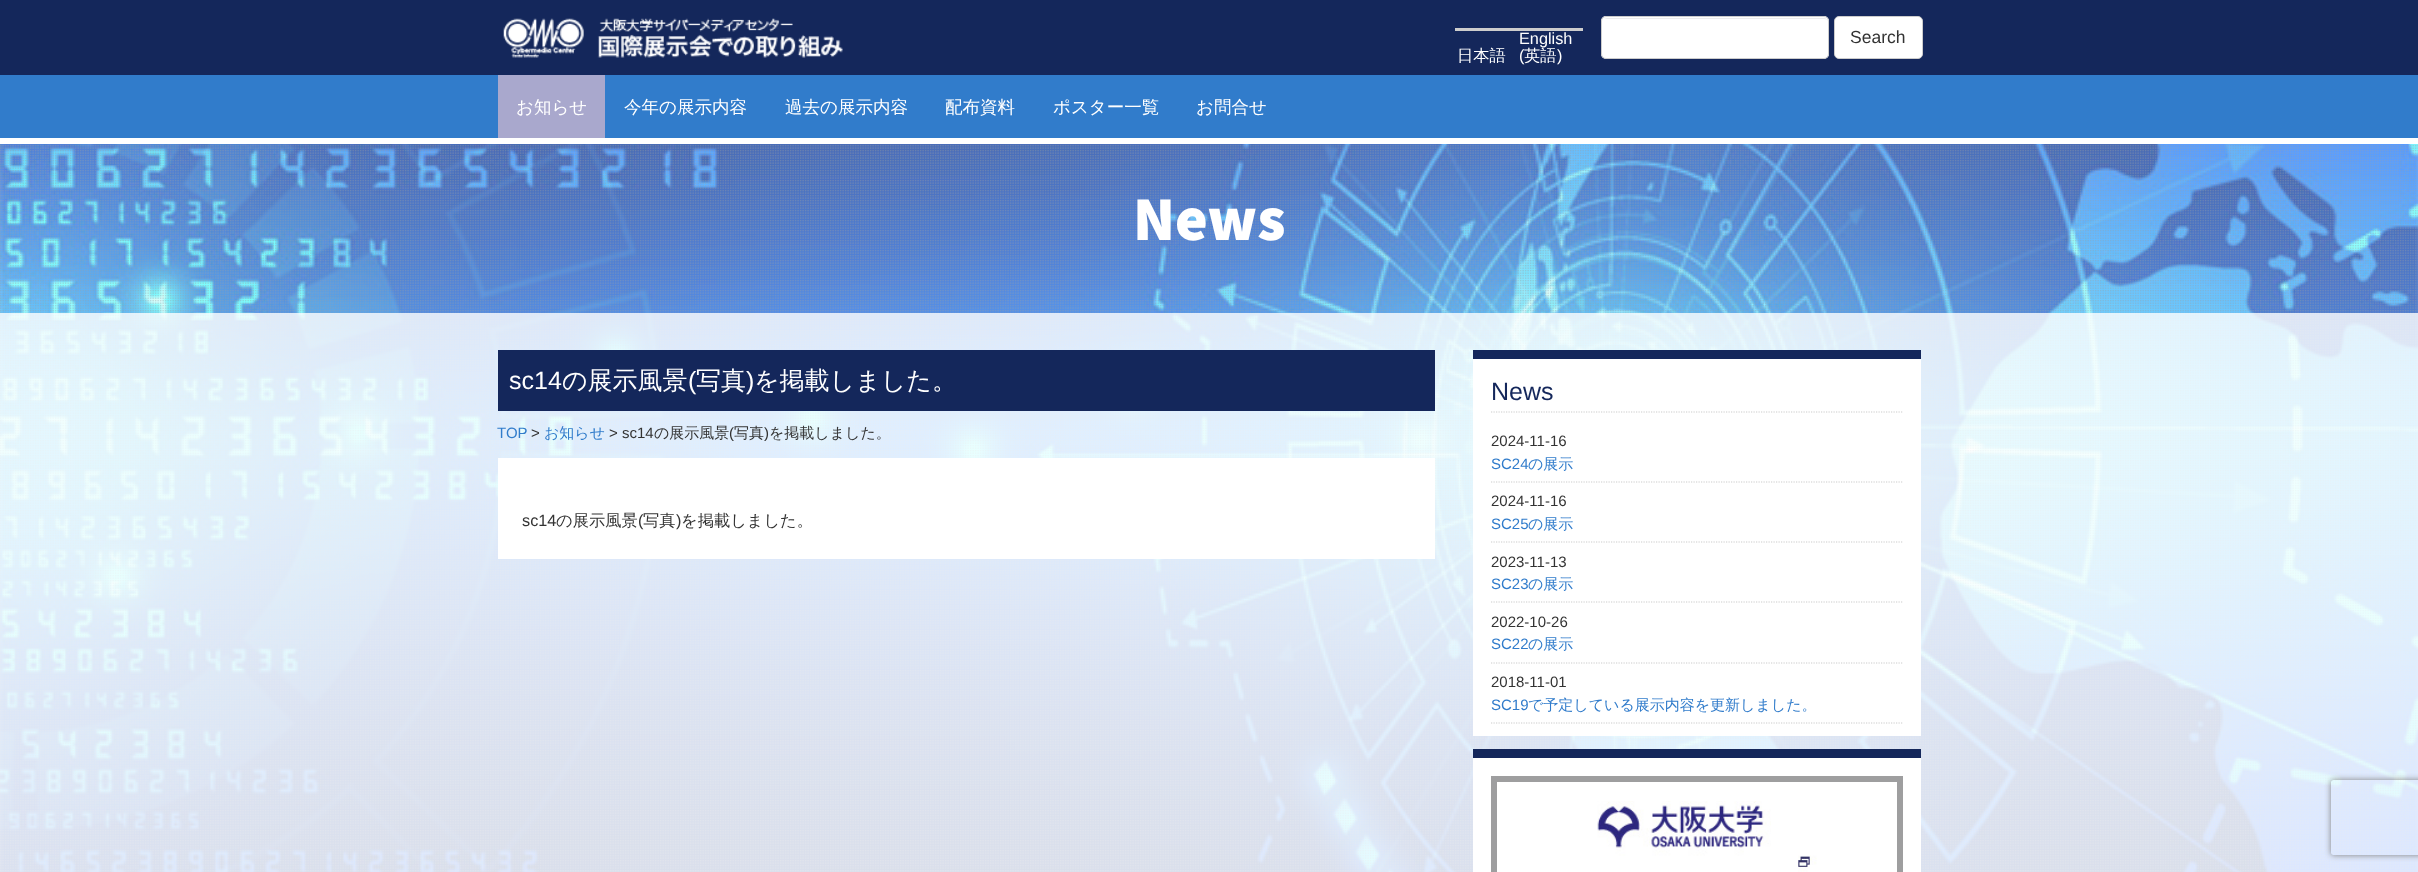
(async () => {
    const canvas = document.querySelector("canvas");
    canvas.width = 2418;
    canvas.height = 872;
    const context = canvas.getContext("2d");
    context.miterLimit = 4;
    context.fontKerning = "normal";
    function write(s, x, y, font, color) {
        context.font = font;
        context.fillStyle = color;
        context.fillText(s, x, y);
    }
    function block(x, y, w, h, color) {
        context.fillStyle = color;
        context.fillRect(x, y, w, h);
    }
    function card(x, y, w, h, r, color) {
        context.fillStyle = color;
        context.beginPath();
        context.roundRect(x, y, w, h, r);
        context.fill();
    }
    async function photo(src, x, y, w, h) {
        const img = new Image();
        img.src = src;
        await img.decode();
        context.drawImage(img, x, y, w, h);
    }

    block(0, 0, 2418, 872, "rgb(255, 255, 255)");
    block(0, 0, 2418, 75, "rgb(20, 39, 91)");
    await photo("media/1.png", 503, 18, 340, 40);
    block(1455, 28, 128, 3, "rgb(205, 205, 205)");
    write("日本語", 1457, 61, "500 16.25px WenQuanYi Zen Hei", "rgb(255, 255, 255)");
    write("English", 1519, 44, "16.25px Liberation Sans", "rgb(255, 255, 255)");
    write("(", 1519, 61, "16.25px Liberation Sans", "rgb(255, 255, 255)");
    write("英語", 1524, 61, "500 16.25px WenQuanYi Zen Hei", "rgb(255, 255, 255)");
    write(")", 1557, 61, "16.25px Liberation Sans", "rgb(255, 255, 255)");
    card(1601, 16, 228, 43, 5, "rgb(255, 255, 255)");
    context.fillStyle = "rgb(236, 236, 236)";
    context.beginPath();
    context.moveTo(1606, 19);
    context.lineTo(1824, 19);
    context.bezierCurveTo(1826, 19, 1828, 20, 1828, 22);
    context.bezierCurveTo(1828, 20, 1826, 18, 1824, 18);
    context.lineTo(1607, 18);
    context.bezierCurveTo(1606, 18, 1605, 19, 1604, 19);
    context.closePath();
    context.fill();
    context.beginPath();
    context.roundRect(1601.5, 16.5, 227, 42, 4.5);
    context.strokeStyle = "rgb(204, 204, 204)";
    context.stroke();
    context.fillStyle = "rgb(255, 255, 255)";
    context.beginPath();
    context.roundRect(1834.5, 16.5, 88, 42, 4.5);
    context.fill();
    context.stroke();
    write("Search", 1850, 43, "17.5px Liberation Sans", "rgb(51, 51, 51)");
    block(0, 75, 2418, 63, "rgb(49, 124, 203)");
    block(498, 75, 107, 63, "rgb(169, 168, 205)");
    write("お知らせ", 516, 113, "500 17.5px WenQuanYi Zen Hei", "rgb(255, 255, 255)");
    write("今年の展示内容", 624, 113, "500 17.5px WenQuanYi Zen Hei", "rgb(255, 255, 255)");
    write("過去の展示内容", 785, 113, "500 17.5px WenQuanYi Zen Hei", "rgb(255, 255, 255)");
    write("配布資料", 945, 113, "500 17.5px WenQuanYi Zen Hei", "rgb(255, 255, 255)");
    write("ポスター一覧", 1053, 113, "500 17.5px WenQuanYi Zen Hei", "rgb(255, 255, 255)");
    write("お問合せ", 1196, 113, "500 17.5px WenQuanYi Zen Hei", "rgb(255, 255, 255)");
    await photo("media/2.png", 0, 144, 2418, 728);
    await photo("media/3.png", 0, 144, 2418, 728);
    write("News", 1133, 240, "900 62.5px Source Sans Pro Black", "rgb(255, 255, 255)");
    block(0, 313, 2418, 559, "rgba(255, 255, 255, 0.8)");
    block(498, 350, 937, 61, "rgb(20, 39, 91)");
    write("sc14", 509, 389, "25px Liberation Sans", "rgb(255, 255, 255)");
    write("の展示風景", 562, 389, "500 25px WenQuanYi Zen Hei", "rgb(255, 255, 255)");
    write("(", 688, 389, "25px Liberation Sans", "rgb(255, 255, 255)");
    write("写真", 696, 389, "500 25px WenQuanYi Zen Hei", "rgb(255, 255, 255)");
    write(")", 746, 389, "25px Liberation Sans", "rgb(255, 255, 255)");
    write("を掲載しました。", 754, 389, "500 25px WenQuanYi Zen Hei", "rgb(255, 255, 255)");
    write("TOP", 497, 438, "15px Liberation Sans", "rgb(49, 124, 203)");
    write(">", 531, 438, "15px Liberation Sans", "rgb(51, 51, 51)");
    write("お知らせ", 544, 438, "500 15px WenQuanYi Zen Hei", "rgb(49, 124, 203)");
    write("> sc14", 609, 438, "15px Liberation Sans", "rgb(51, 51, 51)");
    write("の展示風景", 654, 438, "500 15px WenQuanYi Zen Hei", "rgb(51, 51, 51)");
    write("(", 729, 438, "15px Liberation Sans", "rgb(51, 51, 51)");
    write("写真", 734, 438, "500 15px WenQuanYi Zen Hei", "rgb(51, 51, 51)");
    write(")", 764, 438, "15px Liberation Sans", "rgb(51, 51, 51)");
    write("を掲載しました。", 769, 438, "500 15px WenQuanYi Zen Hei", "rgb(51, 51, 51)");
    block(498, 458, 937, 101, "rgb(255, 255, 255)");
    write("sc14", 522, 526, "16.25px Liberation Sans", "rgb(51, 51, 51)");
    write("の展示風景", 556, 526, "500 16.25px WenQuanYi Zen Hei", "rgb(51, 51, 51)");
    write("(", 638, 526, "16.25px Liberation Sans", "rgb(51, 51, 51)");
    write("写真", 643, 526, "500 16.25px WenQuanYi Zen Hei", "rgb(51, 51, 51)");
    write(")", 676, 526, "16.25px Liberation Sans", "rgb(51, 51, 51)");
    write("を掲載しました。", 681, 526, "500 16.25px WenQuanYi Zen Hei", "rgb(51, 51, 51)");
    block(1473, 359, 448, 377, "rgb(255, 255, 255)");
    block(1473, 350, 448, 9, "rgb(20, 39, 91)");
    context.beginPath();
    context.moveTo(1491, 412);
    context.lineTo(1902.5, 412);
    context.lineWidth = 1.2;
    context.setLineDash([1.25, 1.25]);
    context.stroke();
    write("News", 1491, 400, "25px Liberation Sans", "rgb(20, 39, 91)");
    write("2024-11-16", 1491, 446, "15px Liberation Sans", "rgb(51, 51, 51)");
    context.beginPath();
    context.moveTo(1491, 482);
    context.lineTo(1902.5, 482);
    context.stroke();
    write("SC24", 1491, 469, "15px Liberation Sans", "rgb(49, 124, 203)");
    write("の展示", 1528, 469, "500 15px WenQuanYi Zen Hei", "rgb(49, 124, 203)");
    write("2024-11-16", 1491, 506, "15px Liberation Sans", "rgb(51, 51, 51)");
    context.beginPath();
    context.moveTo(1491, 542);
    context.lineTo(1902.5, 542);
    context.stroke();
    write("SC25", 1491, 529, "15px Liberation Sans", "rgb(49, 124, 203)");
    write("の展示", 1528, 529, "500 15px WenQuanYi Zen Hei", "rgb(49, 124, 203)");
    write("2023-11-13", 1491, 567, "15px Liberation Sans", "rgb(51, 51, 51)");
    context.beginPath();
    context.moveTo(1491, 602);
    context.lineTo(1902.5, 602);
    context.stroke();
    write("SC23", 1491, 589, "15px Liberation Sans", "rgb(49, 124, 203)");
    write("の展示", 1528, 589, "500 15px WenQuanYi Zen Hei", "rgb(49, 124, 203)");
    write("2022-10-26", 1491, 627, "15px Liberation Sans", "rgb(51, 51, 51)");
    context.beginPath();
    context.moveTo(1491, 663);
    context.lineTo(1902.5, 663);
    context.stroke();
    write("SC22", 1491, 649, "15px Liberation Sans", "rgb(49, 124, 203)");
    write("の展示", 1528, 649, "500 15px WenQuanYi Zen Hei", "rgb(49, 124, 203)");
    write("2018-11-01", 1491, 687, "15px Liberation Sans", "rgb(51, 51, 51)");
    context.beginPath();
    context.moveTo(1491, 723);
    context.lineTo(1902.5, 723);
    context.stroke();
    write("SC19", 1491, 710, "15px Liberation Sans", "rgb(49, 124, 203)");
    write("で予定している展示内容を更新しました。", 1528, 710, "500 15px WenQuanYi Zen Hei", "rgb(49, 124, 203)");
    block(1473, 758, 448, 114, "rgb(255, 255, 255)");
    block(1473, 749, 448, 9, "rgb(20, 39, 91)");
    context.strokeStyle = "rgb(158, 158, 159)";
    context.lineWidth = 6;
    context.setLineDash([]);
    context.strokeRect(1494, 779, 406, 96);
    await photo("media/4.png", 1597, 801, 220, 71);
    context.save();
    context.beginPath();
    context.moveTo(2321, 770);
    context.lineTo(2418, 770);
    context.lineTo(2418, 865);
    context.lineTo(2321, 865);
    context.closePath();
    context.moveTo(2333.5, 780);
    context.lineTo(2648.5, 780);
    context.bezierCurveTo(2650, 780, 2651, 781, 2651, 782.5);
    context.lineTo(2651, 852.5);
    context.bezierCurveTo(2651, 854, 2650, 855, 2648.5, 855);
    context.lineTo(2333.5, 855);
    context.bezierCurveTo(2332, 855, 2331, 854, 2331, 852.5);
    context.lineTo(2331, 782.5);
    context.bezierCurveTo(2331, 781, 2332, 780, 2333.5, 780);
    context.closePath();
    context.clip("evenodd");
    context.fillStyle = "rgb(128, 128, 128)";
    context.filter = "blur(3px)";
    context.beginPath();
    context.roundRect(2331, 780, 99, 75, 2.5);
    context.fill();
    context.filter = "none";
    context.restore();
})();
